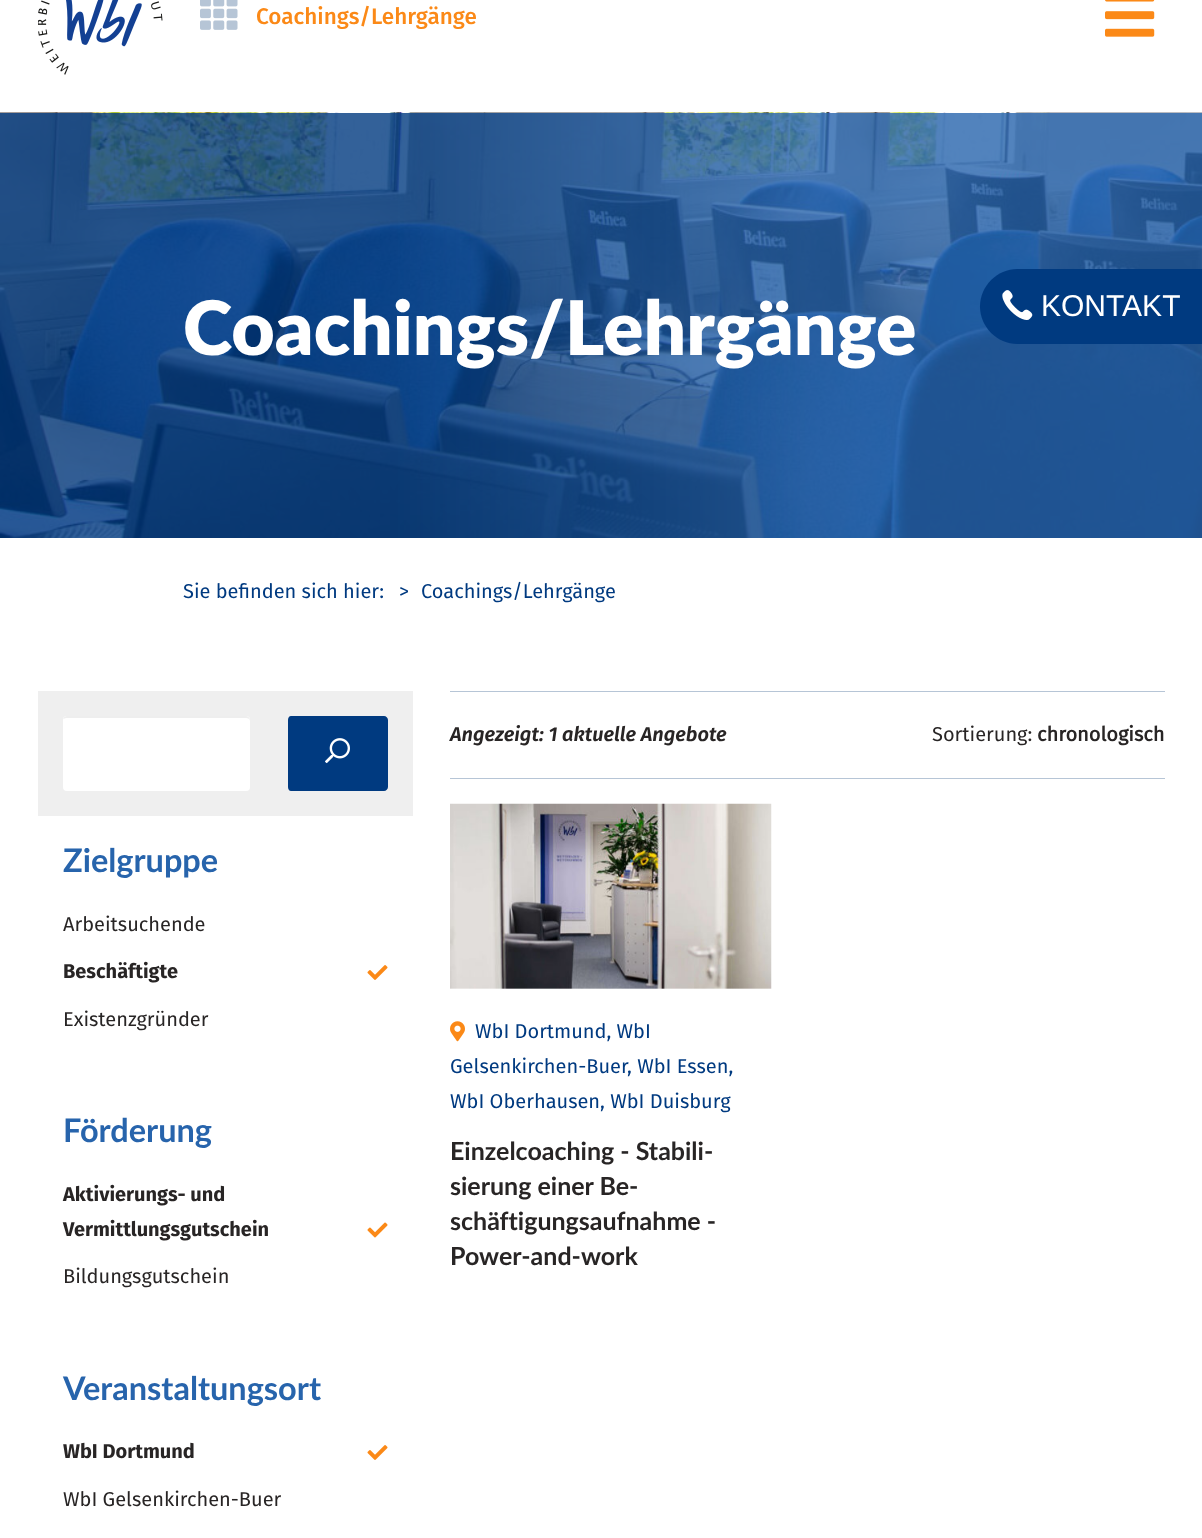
(async () => {
    const canvas = document.querySelector("canvas");
    canvas.width = 1202;
    canvas.height = 1538;
    const context = canvas.getContext("2d");
    context.miterLimit = 4;
    context.fontKerning = "normal";
    function write(s, x, y, font, color) {
        context.font = font;
        context.fillStyle = color;
        context.fillText(s, x, y);
    }
    function block(x, y, w, h, color) {
        context.fillStyle = color;
        context.fillRect(x, y, w, h);
    }
    function card(x, y, w, h, r, color) {
        context.fillStyle = color;
        context.beginPath();
        context.roundRect(x, y, w, h, r);
        context.fill();
    }
    async function photo(src, x, y, w, h) {
        const img = new Image();
        img.src = src;
        await img.decode();
        context.drawImage(img, x, y, w, h);
    }

    block(0, 0, 1202, 1538, "rgb(255, 255, 255)");
    await photo("media/1.png", 38, 0, 125, 75);
    await photo("media/2.png", 200, 0, 38, 30);
    write("Coachings/Lehrgänge", 256, 24, "500 22.5px Fira Sans", "rgb(251, 137, 23)");
    await photo("media/3.png", 1105, 0, 50, 37);
    await photo("media/10.png", 0, 112, 1202, 426);
    context.fillStyle = "rgb(0, 58, 128)";
    context.beginPath();
    context.moveTo(1017.5, 269);
    context.lineTo(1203, 269);
    context.lineTo(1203, 344);
    context.lineTo(1017.5, 344);
    context.bezierCurveTo(997, 344, 980, 327, 980, 306.5);
    context.bezierCurveTo(980, 286, 997, 269, 1017.5, 269);
    context.closePath();
    context.fill();
    await photo("media/4.png", 1002, 290, 31, 30);
    write("KONTAKT", 1041, 316, "30px Liberation Sans", "rgb(255, 255, 255)");
    write("Sie befinden sich hier:", 183, 598, "20px Fira Sans", "rgb(0, 58, 128)");
    write(">", 399, 598, "20px Fira Sans", "rgb(0, 58, 128)");
    write("Coachings/Lehrgänge", 421, 598, "20px Fira Sans", "rgb(0, 58, 128)");
    block(38, 691, 375, 125, "rgb(239, 239, 239)");
    card(63, 716, 187, 75, 4, "rgb(255, 255, 255)");
    context.fillStyle = "rgb(238, 238, 238)";
    context.beginPath();
    context.moveTo(66, 718);
    context.lineTo(246, 718);
    context.bezierCurveTo(248, 718, 250, 719, 250, 721);
    context.lineTo(250, 720);
    context.bezierCurveTo(250, 718, 248, 716, 246, 716);
    context.lineTo(67, 716);
    context.bezierCurveTo(65, 716, 64, 717, 63, 719);
    context.closePath();
    context.fill();
    context.fillStyle = "rgb(0, 58, 128)";
    context.beginPath();
    context.moveTo(384, 716);
    context.lineTo(291, 716);
    context.bezierCurveTo(289, 716, 288, 718, 288, 720);
    context.lineTo(288, 787);
    context.bezierCurveTo(288, 789, 289, 791, 291, 791);
    context.lineTo(384, 791);
    context.bezierCurveTo(386, 791, 388, 789, 388, 787);
    context.lineTo(388, 720);
    context.bezierCurveTo(388, 718, 386, 716, 384, 716);
    context.closePath();
    context.fill();
    await photo("media/5.png", 325, 738, 25, 26);
    write("Zielgruppe", 63, 872, "bold 32.5px Lato", "rgb(39, 100, 172)");
    write("Arbeitsuchende", 63, 931, "20px Fira Sans", "rgb(40, 37, 37)");
    write("Beschäftigte", 63, 978, "bold 20px 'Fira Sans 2'", "rgb(40, 37, 37)");
    await photo("media/6.png", 367, 965, 21, 15);
    write("Existenzgründer", 63, 1026, "20px Fira Sans", "rgb(40, 37, 37)");
    write("Förderung", 63, 1142, "bold 32.5px Lato", "rgb(39, 100, 172)");
    write("Aktivierungs- und", 63, 1201, "bold 20px 'Fira Sans 2'", "rgb(40, 37, 37)");
    write("Vermittlungsgutschein", 63, 1236, "bold 20px 'Fira Sans 2'", "rgb(40, 37, 37)");
    await photo("media/7.png", 367, 1222, 21, 16);
    write("Bildungsgutschein", 63, 1283, "20px Fira Sans", "rgb(40, 37, 37)");
    write("Veranstaltungsort", 63, 1400, "bold 32.5px Lato", "rgb(39, 100, 172)");
    write("WbI Dortmund", 63, 1458, "bold 20px 'Fira Sans 2'", "rgb(40, 37, 37)");
    await photo("media/6.png", 367, 1445, 21, 15);
    write("WbI Gelsenkirchen-Buer", 63, 1506, "20px Fira Sans", "rgb(40, 37, 37)");
    block(450, 691, 715, 1, "rgb(182, 197, 214)");
    block(450, 778, 715, 1, "rgb(182, 197, 214)");
    write("Angezeigt: 1 aktuelle Angebote", 450, 741, "italic 600 20px Fira Sans", "rgb(40, 37, 37)");
    write("Sortierung:", 932, 741, "20px Fira Sans", "rgb(40, 37, 37)");
    write("chronologisch", 1037, 741, "bold 20px Fira Sans", "rgb(40, 37, 37)");
    await photo("media/8.png", 450, 803, 322, 186);
    await photo("media/9.png", 450, 1021, 15, 21);
    write("WbI Dortmund, WbI", 475, 1038, "20px Fira Sans", "rgb(0, 58, 128)");
    write("Gelsenkirchen-Buer, WbI Essen,", 450, 1073, "20px Fira Sans", "rgb(0, 58, 128)");
    write("WbI Oberhausen, WbI Duisburg", 450, 1108, "20px Fira Sans", "rgb(0, 58, 128)");
    write("Einzelcoaching - Stabili-", 450, 1160, "bold 25px Lato", "rgb(40, 37, 37)");
    write("sierung einer Be-", 450, 1195, "bold 25px Lato", "rgb(40, 37, 37)");
    write("schäftigungsaufnahme -", 450, 1230, "bold 25px Lato", "rgb(40, 37, 37)");
    write("Power-and-work", 450, 1265, "bold 25px Lato", "rgb(40, 37, 37)");
    write("Coachings/Lehrgänge", 183, 355, "900 75px Lato", "rgb(255, 255, 255)");
})();
